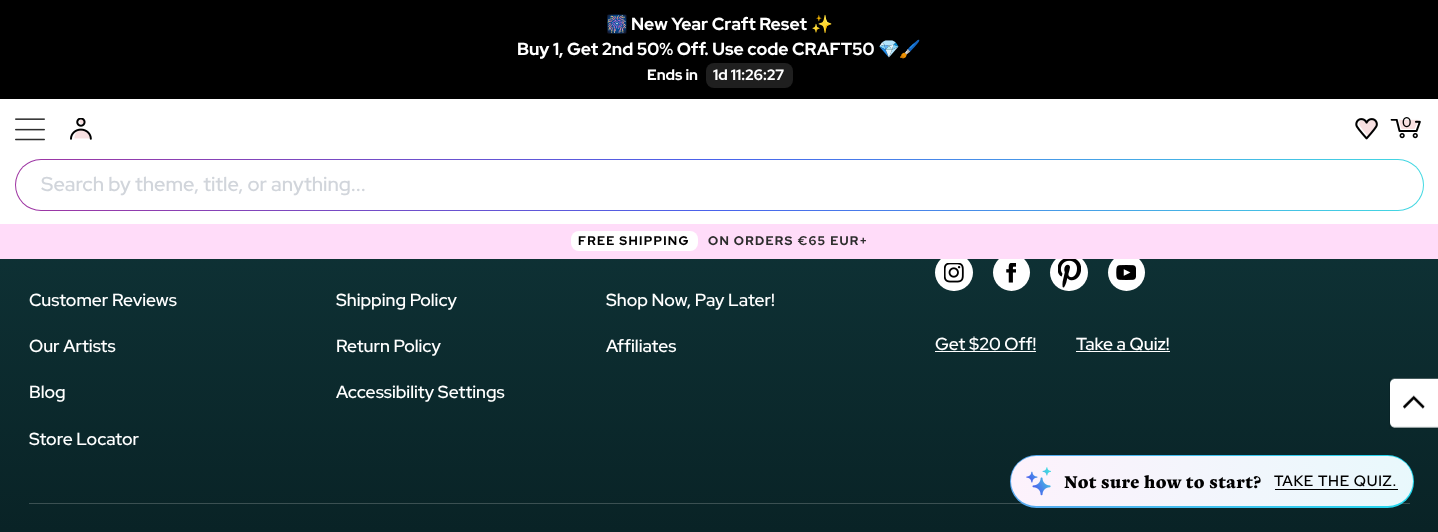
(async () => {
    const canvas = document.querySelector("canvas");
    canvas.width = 1438;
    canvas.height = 532;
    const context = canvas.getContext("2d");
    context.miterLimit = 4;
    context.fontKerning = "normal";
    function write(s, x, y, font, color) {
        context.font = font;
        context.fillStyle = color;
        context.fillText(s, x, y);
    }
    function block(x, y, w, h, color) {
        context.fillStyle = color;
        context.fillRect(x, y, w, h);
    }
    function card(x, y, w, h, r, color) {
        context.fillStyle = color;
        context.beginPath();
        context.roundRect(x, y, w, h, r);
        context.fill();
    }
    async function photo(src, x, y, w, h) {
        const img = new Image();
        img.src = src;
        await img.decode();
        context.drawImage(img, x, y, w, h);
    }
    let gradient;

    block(0, 0, 1438, 532, "rgb(255, 255, 255)");
    block(0, 0, 1438, 99, "rgb(0, 0, 0)");
    write("🎆", 606, 30, "bold 17.5px Noto Color Emoji", "rgb(255, 255, 255)");
    write("New Year Craft Reset", 631, 30, "bold 17.5px Red Hat Display", "rgb(255, 255, 255)");
    write("✨", 811, 30, "bold 17.5px Noto Color Emoji", "rgb(255, 255, 255)");
    write("Buy 1, Get 2nd 50% Off. Use code CRAFT50", 517, 55, "bold 17.5px Red Hat Display", "rgb(255, 255, 255)");
    write("💎🖌️", 878, 55, "bold 17.5px Noto Color Emoji", "rgb(255, 255, 255)");
    write("Ends in", 647, 80, "bold 15px Red Hat Display", "rgb(255, 255, 255)");
    card(706, 63, 87, 25, 8, "rgb(31, 31, 31)");
    write("1d 11:26:27", 713, 80, "bold 15px Red Hat Display", "rgb(255, 255, 255)");
    await photo("media/1.png", 15, 118, 30, 23);
    await photo("media/2.png", 70, 118, 22, 22);
    await photo("media/3.png", 1355, 118, 23, 22);
    await photo("media/4.png", 1390, 119, 31, 20);
    write("0", 1402, 127, "500 14px Red Hat Display", "rgb(0, 0, 0)");
    gradient = context.createLinearGradient(15, 185, 1424, 185);
    gradient.addColorStop(0, "rgb(159, 53, 162)");
    gradient.addColorStop(0.5, "rgb(73, 99, 236)");
    gradient.addColorStop(1, "rgb(67, 217, 226)");
    context.fillStyle = gradient;
    context.beginPath();
    context.roundRect(15, 159, 1409, 52, 26);
    context.fill();
    card(16, 160, 1407, 50, 25, "rgb(255, 255, 255)");
    write("Search by theme, title, or anything...", 41, 191, "500 20px Red Hat Display", "rgb(209, 213, 219)");
    gradient = context.createLinearGradient(719, -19, 719, 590);
    gradient.addColorStop(0, "rgb(19, 62, 66)");
    gradient.addColorStop(1, "rgb(8, 32, 35)");
    context.fillStyle = gradient;
    context.fillRect(0, 259, 1438, 273);
    card(935, 254, 38, 37, 18.5, "rgb(255, 255, 255)");
    context.beginPath();
    context.arc(1011.5, 272.5, 18.5, 0, Math.PI * 2);
    context.fill();
    card(1050, 254, 38, 37, 18.5, "rgb(255, 255, 255)");
    context.beginPath();
    context.arc(1126.5, 272.5, 18.5, 0, Math.PI * 2);
    context.fill();
    block(0, 224, 1438, 35, "rgb(255, 220, 249)");
    card(571, 231, 127, 20, 8, "rgb(255, 255, 255)");
    context.letterSpacing = "1.25px";
    write("FREE SHIPPING", 578, 245, "bold 12.5px Red Hat Display", "rgb(0, 0, 0)");
    write("ON ORDERS €65 EUR+", 708, 245, "bold 12.5px Red Hat Display", "rgb(45, 45, 45)");
    context.letterSpacing = "0px";
    write("Customer Reviews", 29, 306, "600 17.5px Red Hat Display", "rgb(255, 255, 255)");
    write("Our Artists", 29, 352, "600 17.5px Red Hat Display", "rgb(255, 255, 255)");
    write("Blog", 29, 398, "600 17.5px Red Hat Display", "rgb(255, 255, 255)");
    write("Store Locator", 29, 445, "600 17.5px Red Hat Display", "rgb(255, 255, 255)");
    write("Shipping Policy", 336, 306, "600 17.5px Red Hat Display", "rgb(255, 255, 255)");
    write("Return Policy", 336, 352, "600 17.5px Red Hat Display", "rgb(255, 255, 255)");
    write("Accessibility Settings", 336, 398, "600 17.5px Red Hat Display", "rgb(255, 255, 255)");
    write("Shop Now, Pay Later!", 606, 306, "600 17.5px Red Hat Display", "rgb(255, 255, 255)");
    write("Affiliates", 606, 352, "600 17.5px Red Hat Display", "rgb(255, 255, 255)");
    await photo("media/5.png", 944, 263, 20, 20);
    await photo("media/6.png", 1006, 263, 10, 20);
    await photo("media/7.png", 1058, 259, 23, 29);
    await photo("media/8.png", 1116, 265, 20, 15);
    block(935, 351, 101, 1, "rgb(255, 255, 255)");
    write("Get $20 Off!", 935, 350, "600 17.5px Red Hat Display", "rgb(255, 255, 255)");
    write("Take a Quiz!", 1076, 350, "600 17.5px Red Hat Display", "rgb(255, 255, 255)");
    block(1076, 351, 94, 1, "rgb(255, 255, 255)");
    block(29, 503, 1381, 1, "rgb(59, 80, 82)");
    await photo("media/9.png", 1389, 378, 49, 51);
    gradient = context.createLinearGradient(1010, 481, 1414, 481);
    gradient.addColorStop(0, "rgb(90, 169, 239)");
    gradient.addColorStop(1, "rgb(35, 216, 238)");
    context.fillStyle = gradient;
    context.beginPath();
    context.roundRect(1010, 455, 404, 53, 26.5);
    context.fill();
    gradient = context.createLinearGradient(1011, 481, 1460, 481);
    gradient.addColorStop(0, "rgb(253, 242, 252)");
    gradient.addColorStop(0.39, "rgb(244, 245, 252)");
    gradient.addColorStop(1, "rgb(230, 249, 252)");
    context.fillStyle = gradient;
    context.beginPath();
    context.roundRect(1011, 456, 402, 50, 25);
    context.fill();
    await photo("media/10.png", 1026, 467, 25, 29);
    context.letterSpacing = "0.35px";
    write("Not sure how to start?", 1064, 488, "bold 17.5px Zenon", "rgb(0, 0, 0)");
    context.letterSpacing = "0.75px";
    write("TAKE THE QUIZ.", 1274, 486, "600 15px Red Hat Display", "rgb(0, 0, 0)");
    block(1275, 489, 123, 1, "rgb(0, 0, 0)");
})();
